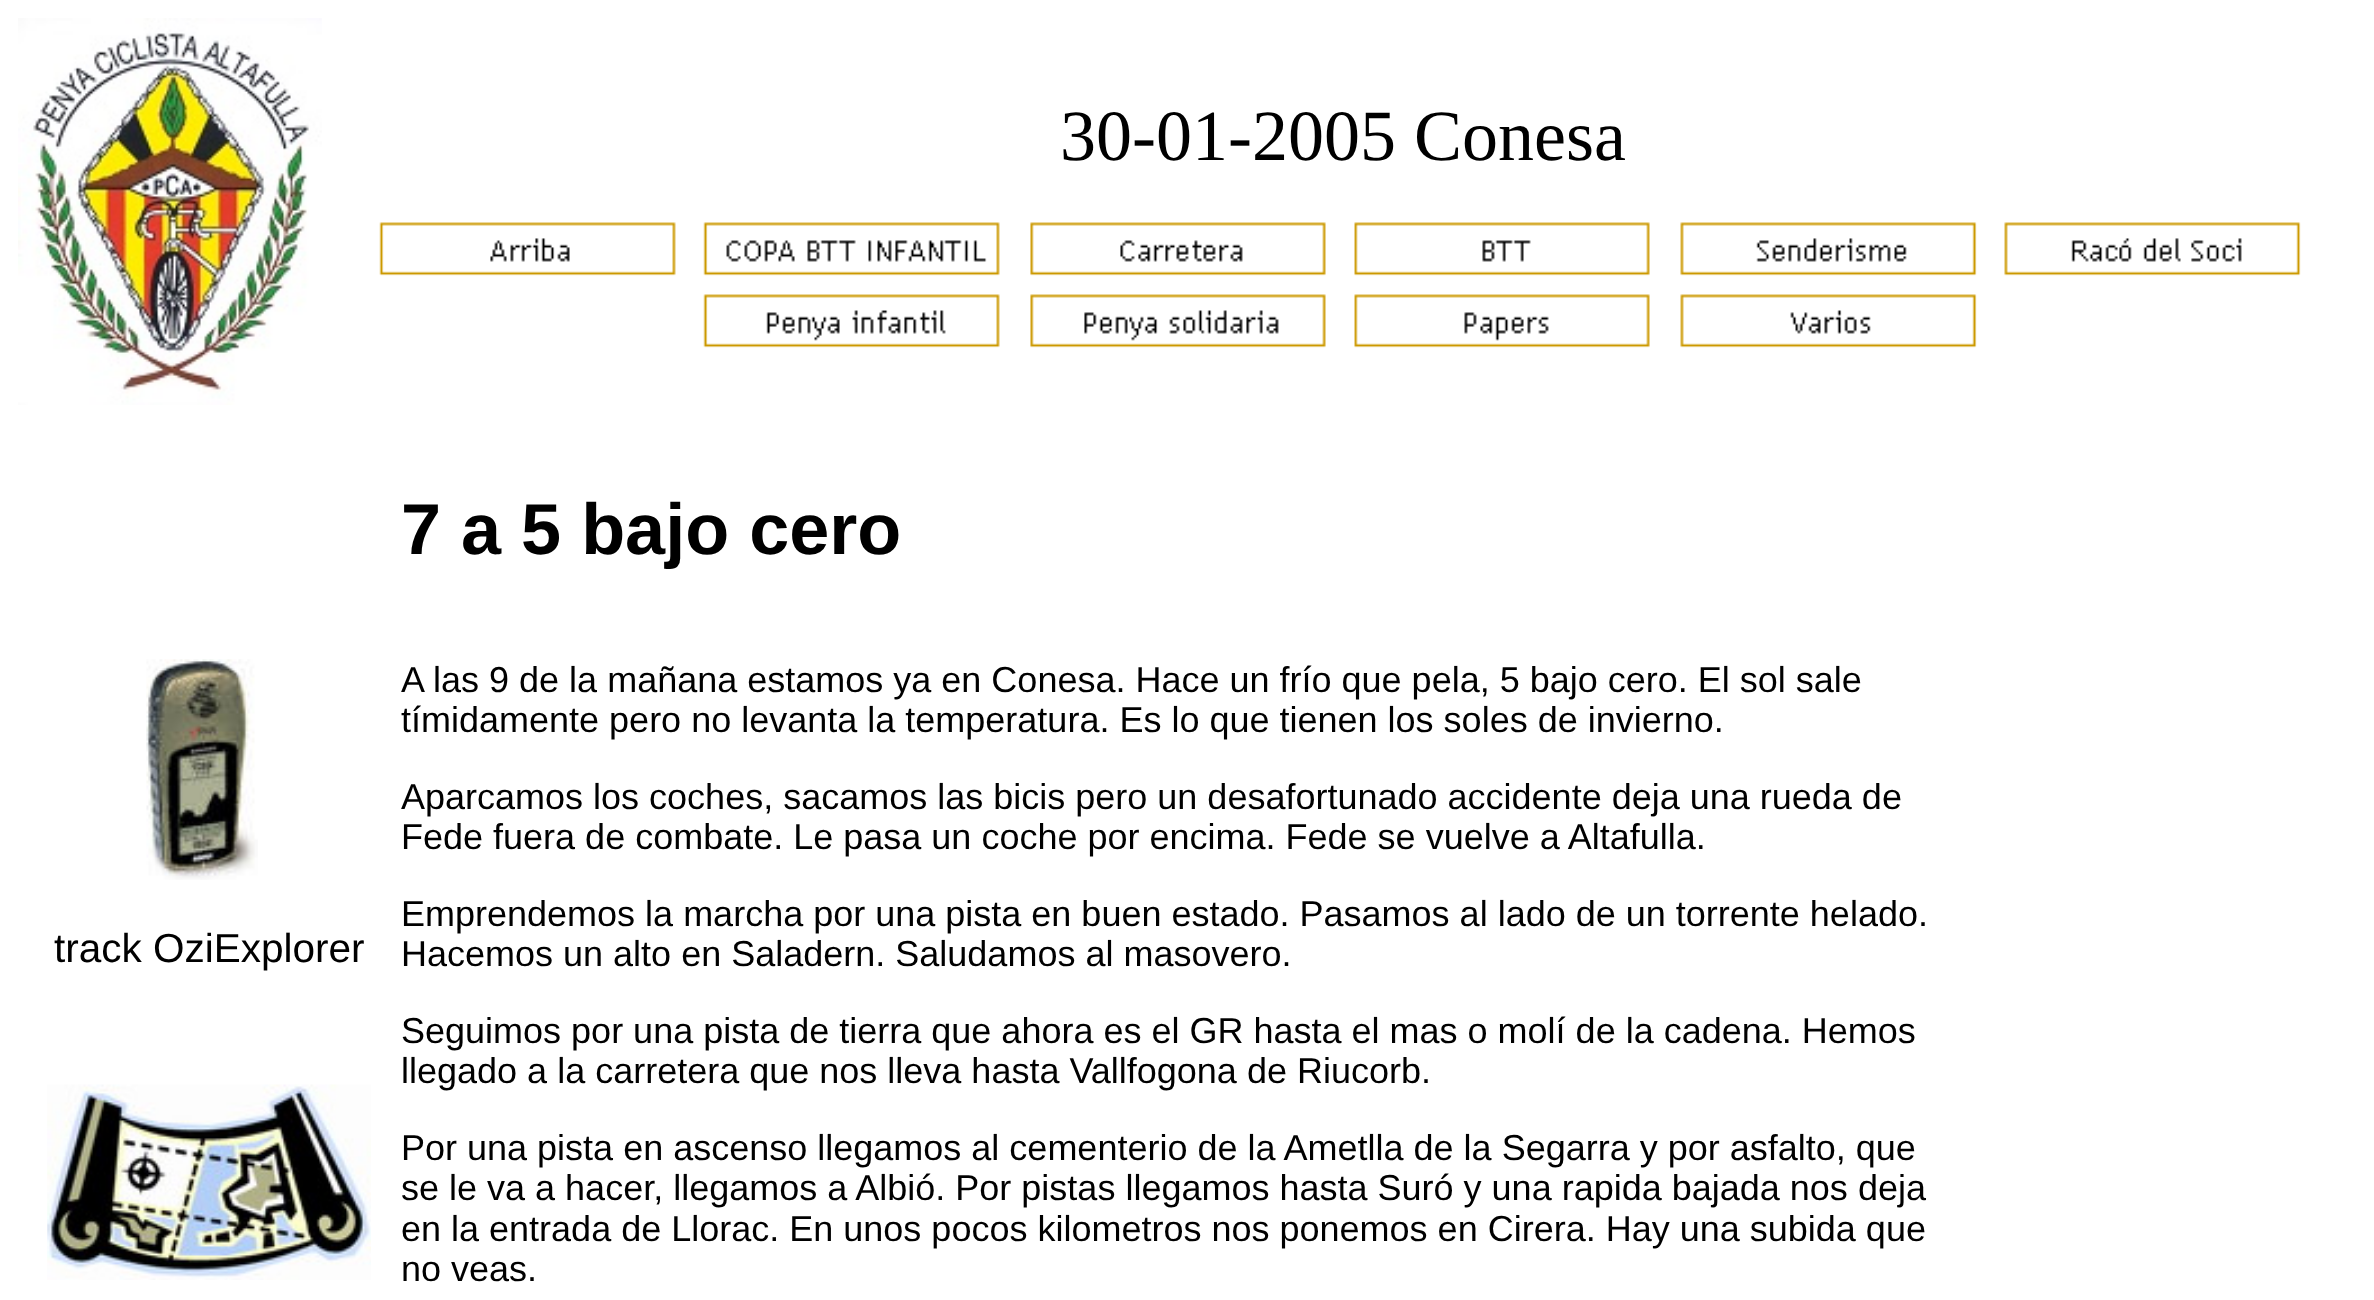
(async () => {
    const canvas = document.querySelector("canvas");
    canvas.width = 2374;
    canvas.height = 1300;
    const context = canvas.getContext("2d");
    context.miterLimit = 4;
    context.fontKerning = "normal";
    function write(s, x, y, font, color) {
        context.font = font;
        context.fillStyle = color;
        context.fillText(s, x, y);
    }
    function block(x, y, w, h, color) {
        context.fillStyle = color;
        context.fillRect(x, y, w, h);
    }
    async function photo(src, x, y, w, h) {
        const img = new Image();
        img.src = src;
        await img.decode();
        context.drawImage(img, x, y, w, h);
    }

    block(0, 0, 2374, 1300, "rgb(255, 255, 255)");
    await photo("media/1.png", 18, 18, 304, 387);
    write("30-01-2005 Conesa", 1060, 160, "72px Liberation Serif", "rgb(0, 0, 0)");
    await photo("media/2.png", 379, 222, 297, 54);
    await photo("media/3.png", 703, 222, 297, 54);
    await photo("media/4.png", 1030, 222, 296, 54);
    await photo("media/5.png", 1354, 222, 296, 54);
    await photo("media/6.png", 1680, 222, 297, 54);
    await photo("media/7.png", 2004, 222, 297, 54);
    await photo("media/8.png", 703, 294, 297, 54);
    await photo("media/9.png", 1030, 294, 296, 54);
    await photo("media/10.png", 1354, 294, 296, 54);
    await photo("media/11.png", 1680, 294, 297, 54);
    write("7 a 5 bajo cero", 401, 554, "bold 72px Liberation Sans", "rgb(0, 0, 0)");
    await photo("media/12.png", 146, 659, 112, 221);
    write("track OziExplorer", 54, 962, "40.5px Liberation Sans", "rgb(0, 0, 0)");
    await photo("media/13.png", 47, 1084, 324, 196);
    write("A las 9 de la mañana estamos ya en Conesa. Hace un frío que pela, 5 bajo cero. El sol sale", 401, 692, "36px Liberation Sans", "rgb(0, 0, 0)");
    write("tímidamente pero no levanta la temperatura. Es lo que tienen los soles de invierno.", 401, 732, "36px Liberation Sans", "rgb(0, 0, 0)");
    write("Aparcamos los coches, sacamos las bicis pero un desafortunado accidente deja una rueda de", 401, 809, "36px Liberation Sans", "rgb(0, 0, 0)");
    write("Fede fuera de combate. Le pasa un coche por encima. Fede se vuelve a Altafulla.", 401, 849, "36px Liberation Sans", "rgb(0, 0, 0)");
    write("Emprendemos la marcha por una pista en buen estado. Pasamos al lado de un torrente helado.", 401, 926, "36px Liberation Sans", "rgb(0, 0, 0)");
    write("Hacemos un alto en Saladern. Saludamos al masovero.", 401, 966, "36px Liberation Sans", "rgb(0, 0, 0)");
    write("Seguimos por una pista de tierra que ahora es el GR hasta el mas o molí de la cadena. Hemos", 401, 1043, "36px Liberation Sans", "rgb(0, 0, 0)");
    write("llegado a la carretera que nos lleva hasta Vallfogona de Riucorb.", 401, 1083, "36px Liberation Sans", "rgb(0, 0, 0)");
    write("Por una pista en ascenso llegamos al cementerio de la Ametlla de la Segarra y por asfalto, que", 401, 1160, "36px Liberation Sans", "rgb(0, 0, 0)");
    write("se le va a hacer, llegamos a Albió. Por pistas llegamos hasta Suró y una rapida bajada nos deja", 401, 1200, "36px Liberation Sans", "rgb(0, 0, 0)");
    write("en la entrada de Llorac. En unos pocos kilometros nos ponemos en Cirera. Hay una subida que", 401, 1241, "36px Liberation Sans", "rgb(0, 0, 0)");
    write("no veas.", 401, 1281, "36px Liberation Sans", "rgb(0, 0, 0)");
})();
